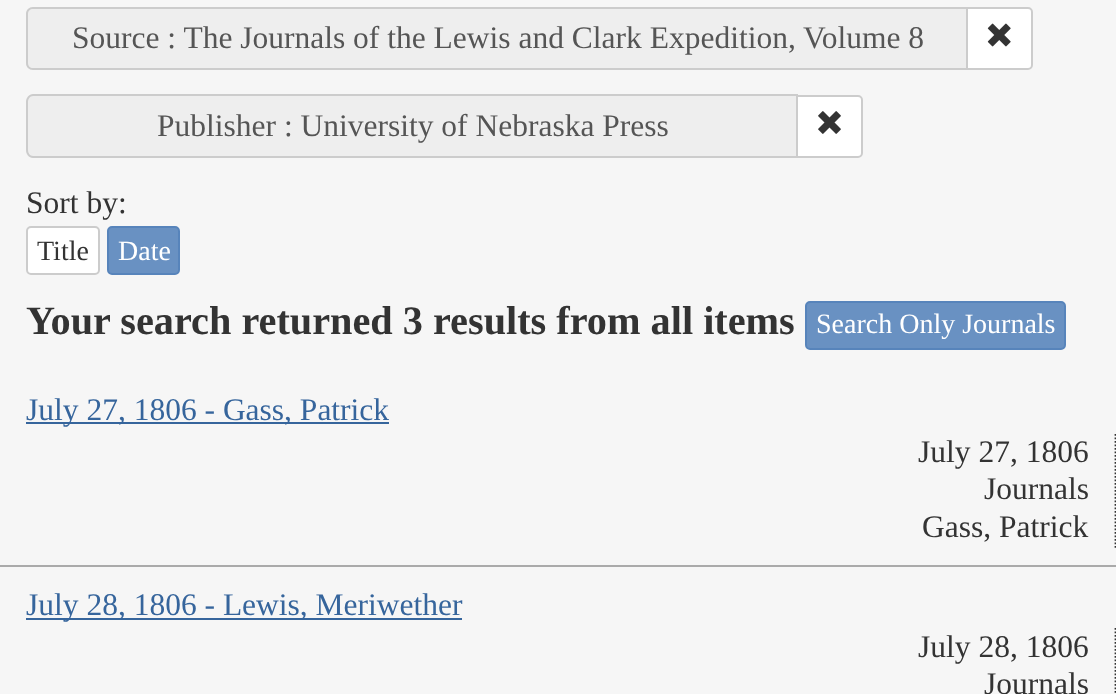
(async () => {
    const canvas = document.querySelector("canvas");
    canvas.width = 1116;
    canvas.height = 694;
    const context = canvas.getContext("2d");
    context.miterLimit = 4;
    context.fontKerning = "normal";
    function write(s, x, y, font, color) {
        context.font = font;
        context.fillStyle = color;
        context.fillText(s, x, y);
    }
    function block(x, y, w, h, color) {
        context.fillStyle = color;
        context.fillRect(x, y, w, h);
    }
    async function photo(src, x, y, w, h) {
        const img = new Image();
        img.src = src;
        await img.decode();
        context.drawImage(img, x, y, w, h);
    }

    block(0, 0, 1116, 694, "rgb(246, 246, 246)");
    context.fillStyle = "rgb(238, 238, 238)";
    context.beginPath();
    context.roundRect(26, 7, 942, 63, [7, 0, 0, 7]);
    context.fill();
    context.fillStyle = "rgb(204, 204, 204)";
    context.beginPath();
    context.moveTo(33, 7);
    context.lineTo(968, 7);
    context.lineTo(968, 70);
    context.lineTo(33, 70);
    context.bezierCurveTo(29, 70, 26, 67, 26, 63);
    context.lineTo(26, 14);
    context.bezierCurveTo(26, 10, 29, 7, 33, 7);
    context.closePath();
    context.moveTo(33, 9);
    context.lineTo(968, 9);
    context.lineTo(968, 68);
    context.lineTo(33, 68);
    context.bezierCurveTo(30, 68, 28, 66, 28, 63);
    context.lineTo(28, 14);
    context.bezierCurveTo(28, 11, 30, 9, 33, 9);
    context.closePath();
    context.fill("evenodd");
    write("Source : The Journals of the Lewis and Clark Expedition, Volume 8", 72, 48, "31.5px Liberation Serif", "rgb(85, 85, 85)");
    context.fillStyle = "rgb(255, 255, 255)";
    context.beginPath();
    context.roundRect(967, 8, 65, 61, [0, 4, 4, 0]);
    context.fill();
    context.strokeStyle = "rgb(204, 204, 204)";
    context.lineWidth = 2;
    context.stroke();
    await photo("media/1.png", 987, 23, 24, 24);
    context.fillStyle = "rgb(238, 238, 238)";
    context.beginPath();
    context.roundRect(26, 95, 772, 63, [7, 0, 0, 7]);
    context.fill();
    context.fillStyle = "rgb(204, 204, 204)";
    context.beginPath();
    context.moveTo(33, 94);
    context.lineTo(798, 94);
    context.lineTo(798, 158);
    context.lineTo(33, 158);
    context.bezierCurveTo(29, 158, 26, 154, 26, 150);
    context.lineTo(26, 102);
    context.bezierCurveTo(26, 98, 29, 94, 33, 94);
    context.closePath();
    context.moveTo(33, 96);
    context.lineTo(798, 96);
    context.lineTo(798, 156);
    context.lineTo(33, 156);
    context.bezierCurveTo(30, 156, 28, 153, 28, 150);
    context.lineTo(28, 102);
    context.bezierCurveTo(28, 99, 30, 96, 33, 96);
    context.closePath();
    context.fill("evenodd");
    write("Publisher : University of Nebraska Press", 157, 136, "31.5px Liberation Serif", "rgb(85, 85, 85)");
    context.fillStyle = "rgb(255, 255, 255)";
    context.beginPath();
    context.roundRect(797, 96, 65, 61, [0, 4, 4, 0]);
    context.fill();
    context.stroke();
    await photo("media/2.png", 818, 111, 23, 23);
    write("Sort by:", 26, 213, "31.5px Liberation Serif", "rgb(51, 51, 51)");
    context.fillStyle = "rgb(255, 255, 255)";
    context.beginPath();
    context.roundRect(27, 227, 72, 47, 4);
    context.fill();
    context.stroke();
    write("Title", 37, 260, "28px Liberation Serif", "rgb(51, 51, 51)");
    context.fillStyle = "rgb(105, 145, 194)";
    context.beginPath();
    context.roundRect(108, 227, 71, 47, 4);
    context.fill();
    context.strokeStyle = "rgb(87, 132, 187)";
    context.stroke();
    write("Date", 118, 260, "28px Liberation Serif", "rgb(255, 255, 255)");
    write("Your search returned 3 results from all items", 26, 334, "bold 40.25px Liberation Serif", "rgb(51, 51, 51)");
    context.fillStyle = "rgb(105, 145, 194)";
    context.beginPath();
    context.roundRect(806, 302, 259, 47, 4);
    context.fill();
    context.stroke();
    write("Search Only Journals", 816, 333, "28px Liberation Serif", "rgb(255, 255, 255)");
    block(0, 565, 1116, 2, "rgb(170, 170, 170)");
    block(26, 422, 363, 2, "rgb(54, 101, 156)");
    write("July 27, 1806 - Gass, Patrick", 26, 420, "31.5px Liberation Serif", "rgb(54, 101, 156)");
    context.beginPath();
    context.moveTo(1115.5, 434);
    context.lineTo(1115.5, 548);
    context.strokeStyle = "rgb(51, 51, 51)";
    context.lineWidth = 1.8;
    context.setLineDash([1.75, 1.75]);
    context.stroke();
    write("July 27, 1806", 918, 462, "31.5px Liberation Serif", "rgb(51, 51, 51)");
    write("Journals", 984, 499, "31.5px Liberation Serif", "rgb(51, 51, 51)");
    write("Gass, Patrick", 922, 537, "31.5px Liberation Serif", "rgb(51, 51, 51)");
    block(26, 618, 436, 2, "rgb(54, 101, 156)");
    write("July 28, 1806 - Lewis, Meriwether", 26, 615, "31.5px Liberation Serif", "rgb(54, 101, 156)");
    context.beginPath();
    context.moveTo(1115.5, 628);
    context.lineTo(1115.5, 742);
    context.stroke();
    write("July 28, 1806", 918, 657, "31.5px Liberation Serif", "rgb(51, 51, 51)");
    write("Journals", 984, 694, "31.5px Liberation Serif", "rgb(51, 51, 51)");
})();
